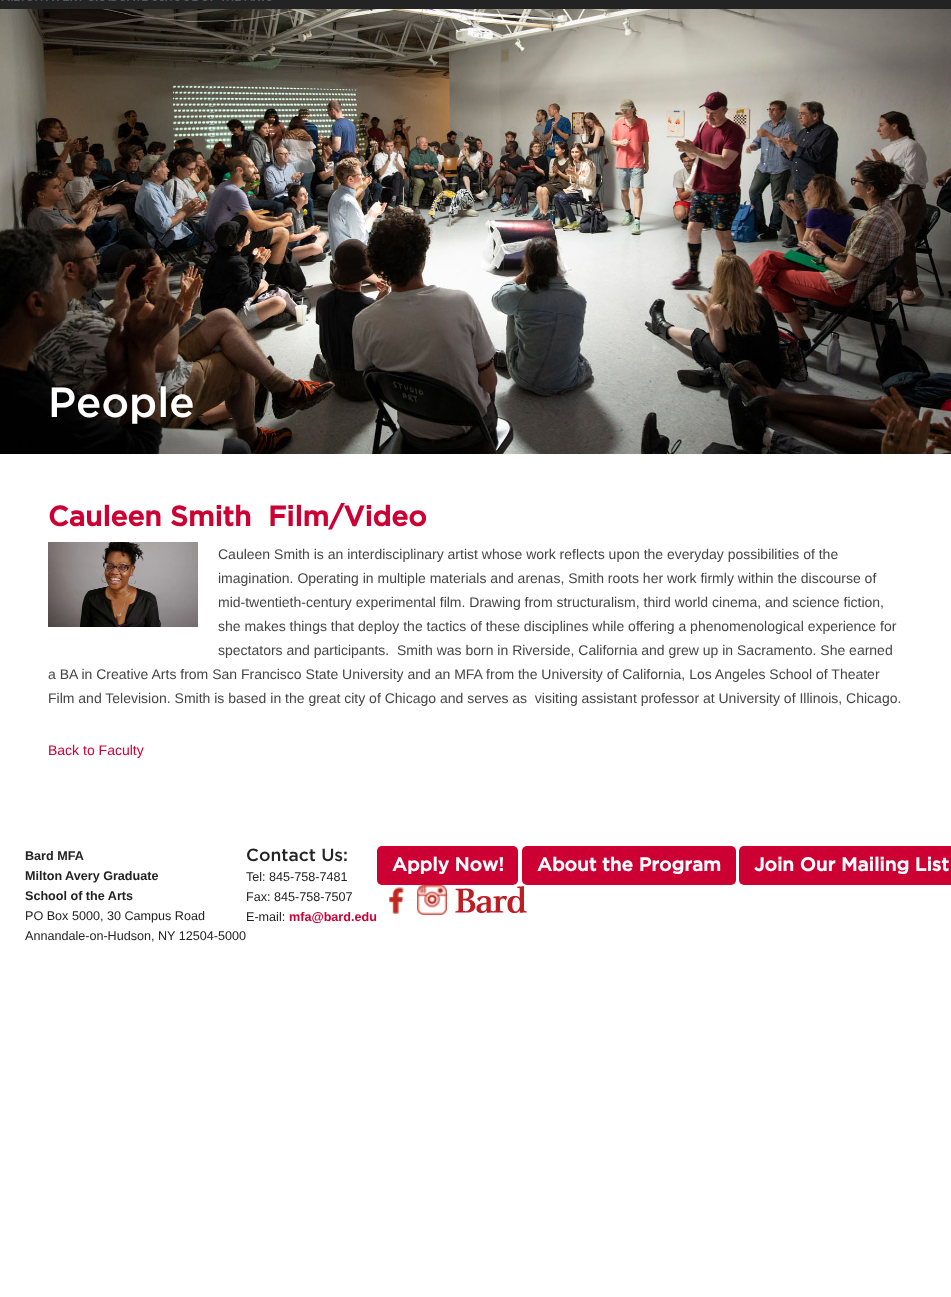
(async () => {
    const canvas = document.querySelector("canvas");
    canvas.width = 951;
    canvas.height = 1297;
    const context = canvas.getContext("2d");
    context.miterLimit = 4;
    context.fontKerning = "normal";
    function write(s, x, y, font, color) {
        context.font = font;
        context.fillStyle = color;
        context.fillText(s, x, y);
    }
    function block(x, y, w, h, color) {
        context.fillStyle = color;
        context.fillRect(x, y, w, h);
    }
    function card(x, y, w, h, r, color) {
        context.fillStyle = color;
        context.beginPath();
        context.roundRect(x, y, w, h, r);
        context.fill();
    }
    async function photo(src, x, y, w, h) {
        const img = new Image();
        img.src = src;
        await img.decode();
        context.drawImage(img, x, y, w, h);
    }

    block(0, 0, 951, 1297, "rgb(255, 255, 255)");
    block(0, 0, 951, 9, "rgb(35, 35, 35)");
    await photo("media/1.png", 1, 0, 271, 1);
    await photo("media/2.png", 0, 9, 951, 445);
    write("People", 48, 417, "500 42px Gotham", "rgb(255, 255, 255)");
    write("Cauleen Smith", 48, 526, "bold 28px Gotham", "rgb(204, 0, 51)");
    write("Film/Video", 268, 526, "bold 28px Gotham", "rgb(204, 0, 51)");
    await photo("media/3.png", 48, 542, 150, 85);
    write("Cauleen Smith is an interdisciplinary artist whose work reflects upon the everyday possibilities of the", 218, 559, "14px Liberation Sans", "rgb(69, 69, 69)");
    write("imagination. Operating in multiple materials and arenas, Smith roots her work firmly within the discourse of", 218, 583, "14px Liberation Sans", "rgb(69, 69, 69)");
    write("mid-twentieth-century experimental film. Drawing from structuralism, third world cinema, and science fiction,", 218, 607, "14px Liberation Sans", "rgb(69, 69, 69)");
    write("she makes things that deploy the tactics of these disciplines while offering a phenomenological experience for", 218, 631, "14px Liberation Sans", "rgb(69, 69, 69)");
    write("spectators and participants.  Smith was born in Riverside, California and grew up in Sacramento. She earned", 218, 655, "14px Liberation Sans", "rgb(69, 69, 69)");
    write("a BA in Creative Arts from San Francisco State University and an MFA from the University of California, Los Angeles School of Theater", 48, 679, "14px Liberation Sans", "rgb(69, 69, 69)");
    write("Film and Television. Smith is based in the great city of Chicago and serves as  visiting assistant professor at University of Illinois, Chicago.", 48, 703, "14px Liberation Sans", "rgb(69, 69, 69)");
    write("Back to Faculty", 48, 755, "14px Liberation Sans", "rgb(204, 0, 51)");
    write("Bard MFA", 25, 860, "bold 12.6px Liberation Sans", "rgb(35, 35, 35)");
    write("Milton Avery Graduate", 25, 880, "bold 12.6px Liberation Sans", "rgb(35, 35, 35)");
    write("School of the Arts", 25, 900, "bold 12.6px Liberation Sans", "rgb(35, 35, 35)");
    write("PO Box 5000, 30 Campus Road", 25, 920, "12.6px Liberation Sans", "rgb(35, 35, 35)");
    write("Annandale-on-Hudson, NY 12504-5000", 25, 940, "12.6px Liberation Sans", "rgb(35, 35, 35)");
    write("Contact Us:", 246, 861, "500 17.5px Gotham", "rgb(35, 35, 35)");
    write("Tel: 845-758-7481", 246, 881, "12.6px Liberation Sans", "rgb(35, 35, 35)");
    write("Fax: 845-758-7507", 246, 901, "12.6px Liberation Sans", "rgb(35, 35, 35)");
    write("E-mail:", 246, 921, "12.6px Liberation Sans", "rgb(35, 35, 35)");
    write("mfa@bard.edu", 289, 921, "bold 12.6px Liberation Sans", "rgb(204, 0, 51)");
    card(377, 846, 141, 39, 5, "rgb(204, 0, 51)");
    write("Apply Now!", 392, 871, "bold 18.9px Gotham", "rgb(255, 255, 255)");
    card(522, 846, 214, 39, 5, "rgb(204, 0, 51)");
    write("About the Program", 537, 871, "bold 18.9px Gotham", "rgb(255, 255, 255)");
    card(739, 846, 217, 39, 5, "rgb(204, 0, 51)");
    write("Join Our Mailing List", 754, 871, "bold 18.9px Gotham", "rgb(255, 255, 255)");
    await photo("media/4.png", 389, 887, 15, 27);
    await photo("media/5.png", 417, 885, 30, 30);
    await photo("media/6.png", 455, 886, 72, 27);
})();
